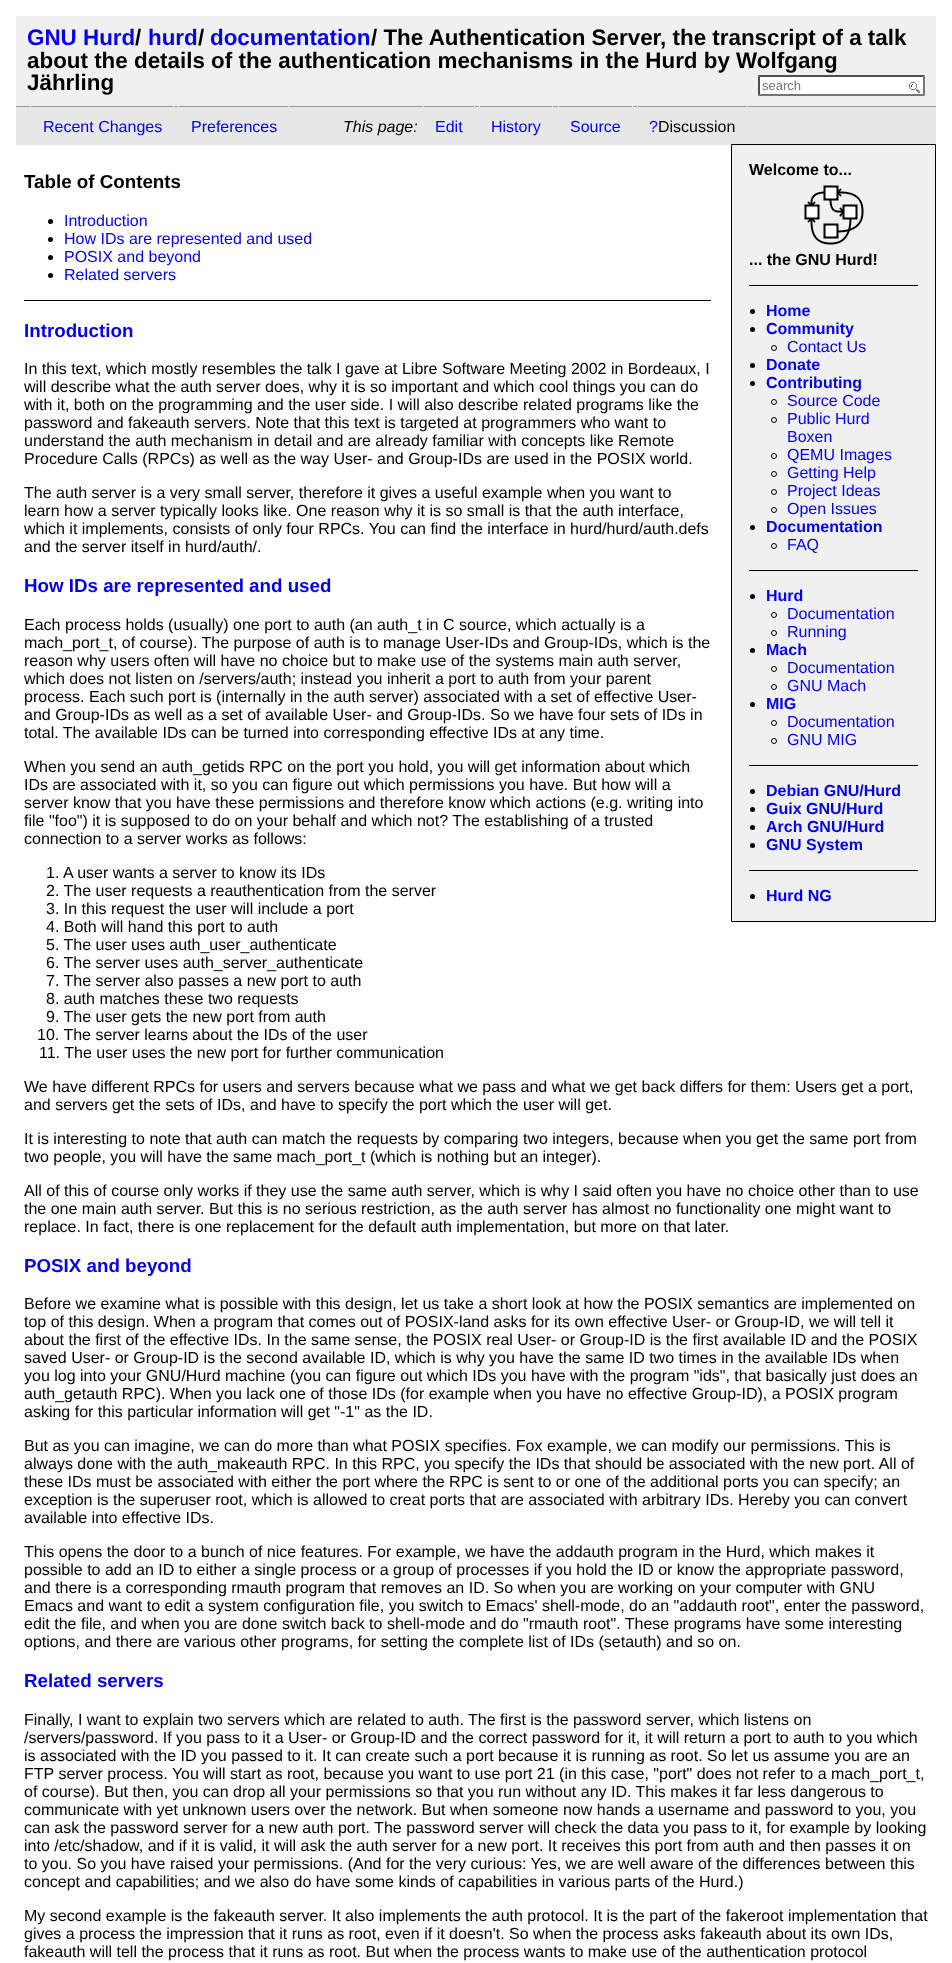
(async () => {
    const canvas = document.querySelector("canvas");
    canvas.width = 952;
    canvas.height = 1963;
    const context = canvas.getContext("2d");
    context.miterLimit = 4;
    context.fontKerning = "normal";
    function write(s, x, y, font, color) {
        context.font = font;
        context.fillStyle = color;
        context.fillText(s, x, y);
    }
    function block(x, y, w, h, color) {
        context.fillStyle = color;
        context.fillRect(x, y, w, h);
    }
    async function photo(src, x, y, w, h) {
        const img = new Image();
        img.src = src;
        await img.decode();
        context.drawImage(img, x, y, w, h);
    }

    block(0, 0, 952, 1963, "rgb(255, 255, 255)");
    block(16, 16, 920, 90, "rgb(240, 240, 240)");
    write("GNU Hurd", 27, 45, "bold 22.4px Liberation Sans", "rgb(0, 0, 238)");
    write("/", 135, 45, "bold 22.4px Liberation Sans", "rgb(0, 0, 0)");
    write("hurd", 148, 45, "bold 22.4px Liberation Sans", "rgb(0, 0, 238)");
    write("/", 198, 45, "bold 22.4px Liberation Sans", "rgb(0, 0, 0)");
    write("documentation", 210, 45, "bold 22.4px Liberation Sans", "rgb(0, 0, 238)");
    write("/ The Authentication Server, the transcript of a talk", 371, 45, "bold 22.4px Liberation Sans", "rgb(0, 0, 0)");
    write("about the details of the authentication mechanisms in the Hurd by Wolfgang", 27, 68, "bold 22.4px Liberation Sans", "rgb(0, 0, 0)");
    write("Jährling", 27, 90, "bold 22.4px Liberation Sans", "rgb(0, 0, 0)");
    block(758, 75, 167, 21, "rgb(255, 255, 255)");
    await photo("media/1.png", 909, 82, 11, 11);
    context.fillStyle = "rgb(79, 79, 79)";
    context.beginPath();
    context.moveTo(758, 75);
    context.lineTo(925, 75);
    context.lineTo(923, 77);
    context.lineTo(760, 77);
    context.closePath();
    context.fill();
    context.fillStyle = "rgb(118, 118, 118)";
    context.beginPath();
    context.moveTo(925, 75);
    context.lineTo(925, 96);
    context.lineTo(923, 94);
    context.lineTo(923, 77);
    context.closePath();
    context.fill();
    context.beginPath();
    context.moveTo(925, 96);
    context.lineTo(758, 96);
    context.lineTo(760, 94);
    context.lineTo(923, 94);
    context.closePath();
    context.fill();
    context.fillStyle = "rgb(79, 79, 79)";
    context.beginPath();
    context.moveTo(758, 96);
    context.lineTo(758, 75);
    context.lineTo(760, 77);
    context.lineTo(760, 94);
    context.closePath();
    context.fill();
    write("search", 762, 90, "13px Liberation Sans", "rgb(117, 117, 117)");
    block(16, 107, 920, 38, "rgb(231, 231, 231)");
    block(16, 106, 920, 1, "rgb(153, 153, 153)");
    write("Recent Changes", 43, 132, "16px Liberation Sans", "rgb(0, 0, 238)");
    block(173, 106, 1, 1, "rgb(231, 231, 231)");
    block(30, 106, 1, 1, "rgb(231, 231, 231)");
    write("Preferences", 191, 132, "16px Liberation Sans", "rgb(0, 0, 238)");
    block(288, 106, 1, 1, "rgb(231, 231, 231)");
    block(178, 106, 1, 1, "rgb(231, 231, 231)");
    write("This page:", 343, 132, "italic 16px Liberation Sans", "rgb(0, 0, 0)");
    write("Edit", 435, 132, "16px Liberation Sans", "rgb(0, 0, 238)");
    block(474, 106, 1, 1, "rgb(231, 231, 231)");
    block(423, 106, 1, 1, "rgb(231, 231, 231)");
    write("History", 491, 132, "16px Liberation Sans", "rgb(0, 0, 238)");
    block(552, 106, 1, 1, "rgb(231, 231, 231)");
    block(479, 106, 1, 1, "rgb(231, 231, 231)");
    write("Source", 570, 132, "16px Liberation Sans", "rgb(0, 0, 238)");
    block(632, 106, 1, 1, "rgb(231, 231, 231)");
    block(558, 106, 1, 1, "rgb(231, 231, 231)");
    write("?", 649, 132, "16px Liberation Sans", "rgb(0, 0, 238)");
    block(637, 106, 1, 1, "rgb(231, 231, 231)");
    write("Discussion", 658, 132, "16px Liberation Sans", "rgb(0, 0, 0)");
    block(747, 106, 1, 1, "rgb(231, 231, 231)");
    context.fillStyle = "rgb(240, 240, 240)";
    context.beginPath();
    context.rect(731.5, 144.5, 204, 777);
    context.fill();
    context.strokeStyle = "rgb(0, 0, 0)";
    context.stroke();
    write("Welcome to...", 749, 175, "bold 16px Liberation Sans", "rgb(0, 0, 0)");
    await photo("media/2.png", 804, 185, 60, 60);
    write("... the GNU Hurd!", 749, 265, "bold 16px Liberation Sans", "rgb(0, 0, 0)");
    block(749, 285, 169, 1, "rgb(0, 0, 0)");
    context.beginPath();
    context.arc(752.5, 311.5, 2.5, 0, Math.PI * 2);
    context.fill();
    write("Home", 766, 316, "bold 16px Liberation Sans", "rgb(0, 0, 238)");
    context.fillStyle = "rgb(0, 0, 0)";
    context.beginPath();
    context.arc(752.5, 329.5, 2.5, 0, Math.PI * 2);
    context.fill();
    write("Community", 766, 334, "bold 16px Liberation Sans", "rgb(0, 0, 238)");
    context.beginPath();
    context.arc(774, 348, 2.5, 0, Math.PI * 2);
    context.stroke();
    write("Contact Us", 787, 352, "16px Liberation Sans", "rgb(0, 0, 238)");
    context.fillStyle = "rgb(0, 0, 0)";
    context.beginPath();
    context.arc(752.5, 365.5, 2.5, 0, Math.PI * 2);
    context.fill();
    write("Donate", 766, 370, "bold 16px Liberation Sans", "rgb(0, 0, 238)");
    context.fillStyle = "rgb(0, 0, 0)";
    context.beginPath();
    context.arc(752.5, 383.5, 2.5, 0, Math.PI * 2);
    context.fill();
    write("Contributing", 766, 388, "bold 16px Liberation Sans", "rgb(0, 0, 238)");
    context.beginPath();
    context.arc(774, 402, 2.5, 0, Math.PI * 2);
    context.stroke();
    write("Source Code", 787, 406, "16px Liberation Sans", "rgb(0, 0, 238)");
    context.beginPath();
    context.arc(774, 420, 2.5, 0, Math.PI * 2);
    context.stroke();
    write("Public Hurd", 787, 424, "16px Liberation Sans", "rgb(0, 0, 238)");
    write("Boxen", 787, 442, "16px Liberation Sans", "rgb(0, 0, 238)");
    context.beginPath();
    context.arc(774, 456, 2.5, 0, Math.PI * 2);
    context.stroke();
    write("QEMU Images", 787, 460, "16px Liberation Sans", "rgb(0, 0, 238)");
    context.beginPath();
    context.arc(774, 474, 2.5, 0, Math.PI * 2);
    context.stroke();
    write("Getting Help", 787, 478, "16px Liberation Sans", "rgb(0, 0, 238)");
    context.beginPath();
    context.arc(774, 492, 2.5, 0, Math.PI * 2);
    context.stroke();
    write("Project Ideas", 787, 496, "16px Liberation Sans", "rgb(0, 0, 238)");
    context.beginPath();
    context.arc(774, 510, 2.5, 0, Math.PI * 2);
    context.stroke();
    write("Open Issues", 787, 514, "16px Liberation Sans", "rgb(0, 0, 238)");
    context.fillStyle = "rgb(0, 0, 0)";
    context.beginPath();
    context.arc(752.5, 527.5, 2.5, 0, Math.PI * 2);
    context.fill();
    write("Documentation", 766, 532, "bold 16px Liberation Sans", "rgb(0, 0, 238)");
    context.beginPath();
    context.arc(774, 546, 2.5, 0, Math.PI * 2);
    context.stroke();
    write("FAQ", 787, 550, "16px Liberation Sans", "rgb(0, 0, 238)");
    block(749, 570, 169, 1, "rgb(0, 0, 0)");
    context.beginPath();
    context.arc(752.5, 596.5, 2.5, 0, Math.PI * 2);
    context.fill();
    write("Hurd", 766, 601, "bold 16px Liberation Sans", "rgb(0, 0, 238)");
    context.beginPath();
    context.arc(774, 615, 2.5, 0, Math.PI * 2);
    context.stroke();
    write("Documentation", 787, 619, "16px Liberation Sans", "rgb(0, 0, 238)");
    context.beginPath();
    context.arc(774, 633, 2.5, 0, Math.PI * 2);
    context.stroke();
    write("Running", 787, 637, "16px Liberation Sans", "rgb(0, 0, 238)");
    context.fillStyle = "rgb(0, 0, 0)";
    context.beginPath();
    context.arc(752.5, 650.5, 2.5, 0, Math.PI * 2);
    context.fill();
    write("Mach", 766, 655, "bold 16px Liberation Sans", "rgb(0, 0, 238)");
    context.beginPath();
    context.arc(774, 669, 2.5, 0, Math.PI * 2);
    context.stroke();
    write("Documentation", 787, 673, "16px Liberation Sans", "rgb(0, 0, 238)");
    context.beginPath();
    context.arc(774, 687, 2.5, 0, Math.PI * 2);
    context.stroke();
    write("GNU Mach", 787, 691, "16px Liberation Sans", "rgb(0, 0, 238)");
    context.fillStyle = "rgb(0, 0, 0)";
    context.beginPath();
    context.arc(752.5, 704.5, 2.5, 0, Math.PI * 2);
    context.fill();
    write("MIG", 766, 709, "bold 16px Liberation Sans", "rgb(0, 0, 238)");
    context.beginPath();
    context.arc(774, 723, 2.5, 0, Math.PI * 2);
    context.stroke();
    write("Documentation", 787, 727, "16px Liberation Sans", "rgb(0, 0, 238)");
    context.beginPath();
    context.arc(774, 741, 2.5, 0, Math.PI * 2);
    context.stroke();
    write("GNU MIG", 787, 745, "16px Liberation Sans", "rgb(0, 0, 238)");
    block(749, 765, 169, 1, "rgb(0, 0, 0)");
    context.beginPath();
    context.arc(752.5, 791.5, 2.5, 0, Math.PI * 2);
    context.fill();
    write("Debian GNU/Hurd", 766, 796, "bold 16px Liberation Sans", "rgb(0, 0, 238)");
    context.fillStyle = "rgb(0, 0, 0)";
    context.beginPath();
    context.arc(752.5, 809.5, 2.5, 0, Math.PI * 2);
    context.fill();
    write("Guix GNU/Hurd", 766, 814, "bold 16px Liberation Sans", "rgb(0, 0, 238)");
    context.fillStyle = "rgb(0, 0, 0)";
    context.beginPath();
    context.arc(752.5, 827.5, 2.5, 0, Math.PI * 2);
    context.fill();
    write("Arch GNU/Hurd", 766, 832, "bold 16px Liberation Sans", "rgb(0, 0, 238)");
    context.fillStyle = "rgb(0, 0, 0)";
    context.beginPath();
    context.arc(752.5, 845.5, 2.5, 0, Math.PI * 2);
    context.fill();
    write("GNU System", 766, 850, "bold 16px Liberation Sans", "rgb(0, 0, 238)");
    block(749, 870, 169, 1, "rgb(0, 0, 0)");
    context.beginPath();
    context.arc(752.5, 896.5, 2.5, 0, Math.PI * 2);
    context.fill();
    write("Hurd NG", 766, 901, "bold 16px Liberation Sans", "rgb(0, 0, 238)");
    write("Table of Contents", 24, 188, "bold 18.75px Liberation Sans", "rgb(0, 0, 0)");
    context.beginPath();
    context.arc(50.5, 221.5, 2.5, 0, Math.PI * 2);
    context.fill();
    write("Introduction", 64, 226, "16px Liberation Sans", "rgb(0, 0, 238)");
    context.fillStyle = "rgb(0, 0, 0)";
    context.beginPath();
    context.arc(50.5, 239.5, 2.5, 0, Math.PI * 2);
    context.fill();
    write("How IDs are represented and used", 64, 244, "16px Liberation Sans", "rgb(0, 0, 238)");
    context.fillStyle = "rgb(0, 0, 0)";
    context.beginPath();
    context.arc(50.5, 257.5, 2.5, 0, Math.PI * 2);
    context.fill();
    write("POSIX and beyond", 64, 262, "16px Liberation Sans", "rgb(0, 0, 238)");
    context.fillStyle = "rgb(0, 0, 0)";
    context.beginPath();
    context.arc(50.5, 275.5, 2.5, 0, Math.PI * 2);
    context.fill();
    write("Related servers", 64, 280, "16px Liberation Sans", "rgb(0, 0, 238)");
    block(24, 300, 687, 1, "rgb(0, 0, 0)");
    write("Introduction", 24, 337, "bold 18.75px Liberation Sans", "rgb(0, 0, 238)");
    write("In this text, which mostly resembles the talk I gave at Libre Software Meeting 2002 in Bordeaux, I", 24, 374, "16px Liberation Sans", "rgb(0, 0, 0)");
    write("will describe what the auth server does, why it is so important and which cool things you can do", 24, 392, "16px Liberation Sans", "rgb(0, 0, 0)");
    write("with it, both on the programming and the user side. I will also describe related programs like the", 24, 410, "16px Liberation Sans", "rgb(0, 0, 0)");
    write("password and fakeauth servers. Note that this text is targeted at programmers who want to", 24, 428, "16px Liberation Sans", "rgb(0, 0, 0)");
    write("understand the auth mechanism in detail and are already familiar with concepts like Remote", 24, 446, "16px Liberation Sans", "rgb(0, 0, 0)");
    write("Procedure Calls (RPCs) as well as the way User- and Group-IDs are used in the POSIX world.", 24, 464, "16px Liberation Sans", "rgb(0, 0, 0)");
    write("The auth server is a very small server, therefore it gives a useful example when you want to", 24, 498, "16px Liberation Sans", "rgb(0, 0, 0)");
    write("learn how a server typically looks like. One reason why it is so small is that the auth interface,", 24, 516, "16px Liberation Sans", "rgb(0, 0, 0)");
    write("which it implements, consists of only four RPCs. You can find the interface in hurd/hurd/auth.defs", 24, 534, "16px Liberation Sans", "rgb(0, 0, 0)");
    write("and the server itself in hurd/auth/.", 24, 552, "16px Liberation Sans", "rgb(0, 0, 0)");
    write("How IDs are represented and used", 24, 592, "bold 18.75px Liberation Sans", "rgb(0, 0, 238)");
    write("Each process holds (usually) one port to auth (an auth_t in C source, which actually is a", 24, 630, "16px Liberation Sans", "rgb(0, 0, 0)");
    write("mach_port_t, of course). The purpose of auth is to manage User-IDs and Group-IDs, which is the", 24, 648, "16px Liberation Sans", "rgb(0, 0, 0)");
    write("reason why users often will have no choice but to make use of the systems main auth server,", 24, 666, "16px Liberation Sans", "rgb(0, 0, 0)");
    write("which does not listen on /servers/auth; instead you inherit a port to auth from your parent", 24, 684, "16px Liberation Sans", "rgb(0, 0, 0)");
    write("process. Each such port is (internally in the auth server) associated with a set of effective User-", 24, 702, "16px Liberation Sans", "rgb(0, 0, 0)");
    write("and Group-IDs as well as a set of available User- and Group-IDs. So we have four sets of IDs in", 24, 720, "16px Liberation Sans", "rgb(0, 0, 0)");
    write("total. The available IDs can be turned into corresponding effective IDs at any time.", 24, 738, "16px Liberation Sans", "rgb(0, 0, 0)");
    write("When you send an auth_getids RPC on the port you hold, you will get information about which", 24, 772, "16px Liberation Sans", "rgb(0, 0, 0)");
    write("IDs are associated with it, so you can figure out which permissions you have. But how will a", 24, 790, "16px Liberation Sans", "rgb(0, 0, 0)");
    write("server know that you have these permissions and therefore know which actions (e.g. writing into", 24, 808, "16px Liberation Sans", "rgb(0, 0, 0)");
    write("file \"foo\") it is supposed to do on your behalf and which not? The establishing of a trusted", 24, 826, "16px Liberation Sans", "rgb(0, 0, 0)");
    write("connection to a server works as follows:", 24, 844, "16px Liberation Sans", "rgb(0, 0, 0)");
    write("1. A user wants a server to know its IDs", 46, 878, "16px Liberation Sans", "rgb(0, 0, 0)");
    write("2. The user requests a reauthentication from the server", 46, 896, "16px Liberation Sans", "rgb(0, 0, 0)");
    write("3. In this request the user will include a port", 46, 914, "16px Liberation Sans", "rgb(0, 0, 0)");
    write("4. Both will hand this port to auth", 46, 932, "16px Liberation Sans", "rgb(0, 0, 0)");
    write("5. The user uses auth_user_authenticate", 46, 950, "16px Liberation Sans", "rgb(0, 0, 0)");
    write("6. The server uses auth_server_authenticate", 46, 968, "16px Liberation Sans", "rgb(0, 0, 0)");
    write("7. The server also passes a new port to auth", 46, 986, "16px Liberation Sans", "rgb(0, 0, 0)");
    write("8. auth matches these two requests", 46, 1004, "16px Liberation Sans", "rgb(0, 0, 0)");
    write("9. The user gets the new port from auth", 46, 1022, "16px Liberation Sans", "rgb(0, 0, 0)");
    write("10. The server learns about the IDs of the user", 37, 1040, "16px Liberation Sans", "rgb(0, 0, 0)");
    write("11. The user uses the new port for further communication", 39, 1058, "16px Liberation Sans", "rgb(0, 0, 0)");
    write("We have different RPCs for users and servers because what we pass and what we get back differs for them: Users get a port,", 24, 1092, "16px Liberation Sans", "rgb(0, 0, 0)");
    write("and servers get the sets of IDs, and have to specify the port which the user will get.", 24, 1110, "16px Liberation Sans", "rgb(0, 0, 0)");
    write("It is interesting to note that auth can match the requests by comparing two integers, because when you get the same port from", 24, 1144, "16px Liberation Sans", "rgb(0, 0, 0)");
    write("two people, you will have the same mach_port_t (which is nothing but an integer).", 24, 1162, "16px Liberation Sans", "rgb(0, 0, 0)");
    write("All of this of course only works if they use the same auth server, which is why I said often you have no choice other than to use", 24, 1196, "16px Liberation Sans", "rgb(0, 0, 0)");
    write("the one main auth server. But this is no serious restriction, as the auth server has almost no functionality one might want to", 24, 1214, "16px Liberation Sans", "rgb(0, 0, 0)");
    write("replace. In fact, there is one replacement for the default auth implementation, but more on that later.", 24, 1232, "16px Liberation Sans", "rgb(0, 0, 0)");
    write("POSIX and beyond", 24, 1272, "bold 18.75px Liberation Sans", "rgb(0, 0, 238)");
    write("Before we examine what is possible with this design, let us take a short look at how the POSIX semantics are implemented on", 24, 1309, "16px Liberation Sans", "rgb(0, 0, 0)");
    write("top of this design. When a program that comes out of POSIX-land asks for its own effective User- or Group-ID, we will tell it", 24, 1327, "16px Liberation Sans", "rgb(0, 0, 0)");
    write("about the first of the effective IDs. In the same sense, the POSIX real User- or Group-ID is the first available ID and the POSIX", 24, 1345, "16px Liberation Sans", "rgb(0, 0, 0)");
    write("saved User- or Group-ID is the second available ID, which is why you have the same ID two times in the available IDs when", 24, 1363, "16px Liberation Sans", "rgb(0, 0, 0)");
    write("you log into your GNU/Hurd machine (you can figure out which IDs you have with the program \"ids\", that basically just does an", 24, 1381, "16px Liberation Sans", "rgb(0, 0, 0)");
    write("auth_getauth RPC). When you lack one of those IDs (for example when you have no effective Group-ID), a POSIX program", 24, 1399, "16px Liberation Sans", "rgb(0, 0, 0)");
    write("asking for this particular information will get \"-1\" as the ID.", 24, 1417, "16px Liberation Sans", "rgb(0, 0, 0)");
    write("But as you can imagine, we can do more than what POSIX specifies. Fox example, we can modify our permissions. This is", 24, 1451, "16px Liberation Sans", "rgb(0, 0, 0)");
    write("always done with the auth_makeauth RPC. In this RPC, you specify the IDs that should be associated with the new port. All of", 24, 1469, "16px Liberation Sans", "rgb(0, 0, 0)");
    write("these IDs must be associated with either the port where the RPC is sent to or one of the additional ports you can specify; an", 24, 1487, "16px Liberation Sans", "rgb(0, 0, 0)");
    write("exception is the superuser root, which is allowed to creat ports that are associated with arbitrary IDs. Hereby you can convert", 24, 1505, "16px Liberation Sans", "rgb(0, 0, 0)");
    write("available into effective IDs.", 24, 1523, "16px Liberation Sans", "rgb(0, 0, 0)");
    write("This opens the door to a bunch of nice features. For example, we have the addauth program in the Hurd, which makes it", 24, 1557, "16px Liberation Sans", "rgb(0, 0, 0)");
    write("possible to add an ID to either a single process or a group of processes if you hold the ID or know the appropriate password,", 24, 1575, "16px Liberation Sans", "rgb(0, 0, 0)");
    write("and there is a corresponding rmauth program that removes an ID. So when you are working on your computer with GNU", 24, 1593, "16px Liberation Sans", "rgb(0, 0, 0)");
    write("Emacs and want to edit a system configuration file, you switch to Emacs' shell-mode, do an \"addauth root\", enter the password,", 24, 1611, "16px Liberation Sans", "rgb(0, 0, 0)");
    write("edit the file, and when you are done switch back to shell-mode and do \"rmauth root\". These programs have some interesting", 24, 1629, "16px Liberation Sans", "rgb(0, 0, 0)");
    write("options, and there are various other programs, for setting the complete list of IDs (setauth) and so on.", 24, 1647, "16px Liberation Sans", "rgb(0, 0, 0)");
    write("Related servers", 24, 1687, "bold 18.75px Liberation Sans", "rgb(0, 0, 238)");
    write("Finally, I want to explain two servers which are related to auth. The first is the password server, which listens on", 24, 1725, "16px Liberation Sans", "rgb(0, 0, 0)");
    write("/servers/password. If you pass to it a User- or Group-ID and the correct password for it, it will return a port to auth to you which", 24, 1743, "16px Liberation Sans", "rgb(0, 0, 0)");
    write("is associated with the ID you passed to it. It can create such a port because it is running as root. So let us assume you are an", 24, 1761, "16px Liberation Sans", "rgb(0, 0, 0)");
    write("FTP server process. You will start as root, because you want to use port 21 (in this case, \"port\" does not refer to a mach_port_t,", 24, 1779, "16px Liberation Sans", "rgb(0, 0, 0)");
    write("of course). But then, you can drop all your permissions so that you run without any ID. This makes it far less dangerous to", 24, 1797, "16px Liberation Sans", "rgb(0, 0, 0)");
    write("communicate with yet unknown users over the network. But when someone now hands a username and password to you, you", 24, 1815, "16px Liberation Sans", "rgb(0, 0, 0)");
    write("can ask the password server for a new auth port. The password server will check the data you pass to it, for example by looking", 24, 1833, "16px Liberation Sans", "rgb(0, 0, 0)");
    write("into /etc/shadow, and if it is valid, it will ask the auth server for a new port. It receives this port from auth and then passes it on", 24, 1851, "16px Liberation Sans", "rgb(0, 0, 0)");
    write("to you. So you have raised your permissions. (And for the very curious: Yes, we are well aware of the differences between this", 24, 1869, "16px Liberation Sans", "rgb(0, 0, 0)");
    write("concept and capabilities; and we also do have some kinds of capabilities in various parts of the Hurd.)", 24, 1887, "16px Liberation Sans", "rgb(0, 0, 0)");
    write("My second example is the fakeauth server. It also implements the auth protocol. It is the part of the fakeroot implementation that", 24, 1921, "16px Liberation Sans", "rgb(0, 0, 0)");
    write("gives a process the impression that it runs as root, even if it doesn't. So when the process asks fakeauth about its own IDs,", 24, 1939, "16px Liberation Sans", "rgb(0, 0, 0)");
    write("fakeauth will tell the process that it runs as root. But when the process wants to make use of the authentication protocol", 24, 1957, "16px Liberation Sans", "rgb(0, 0, 0)");
})();
